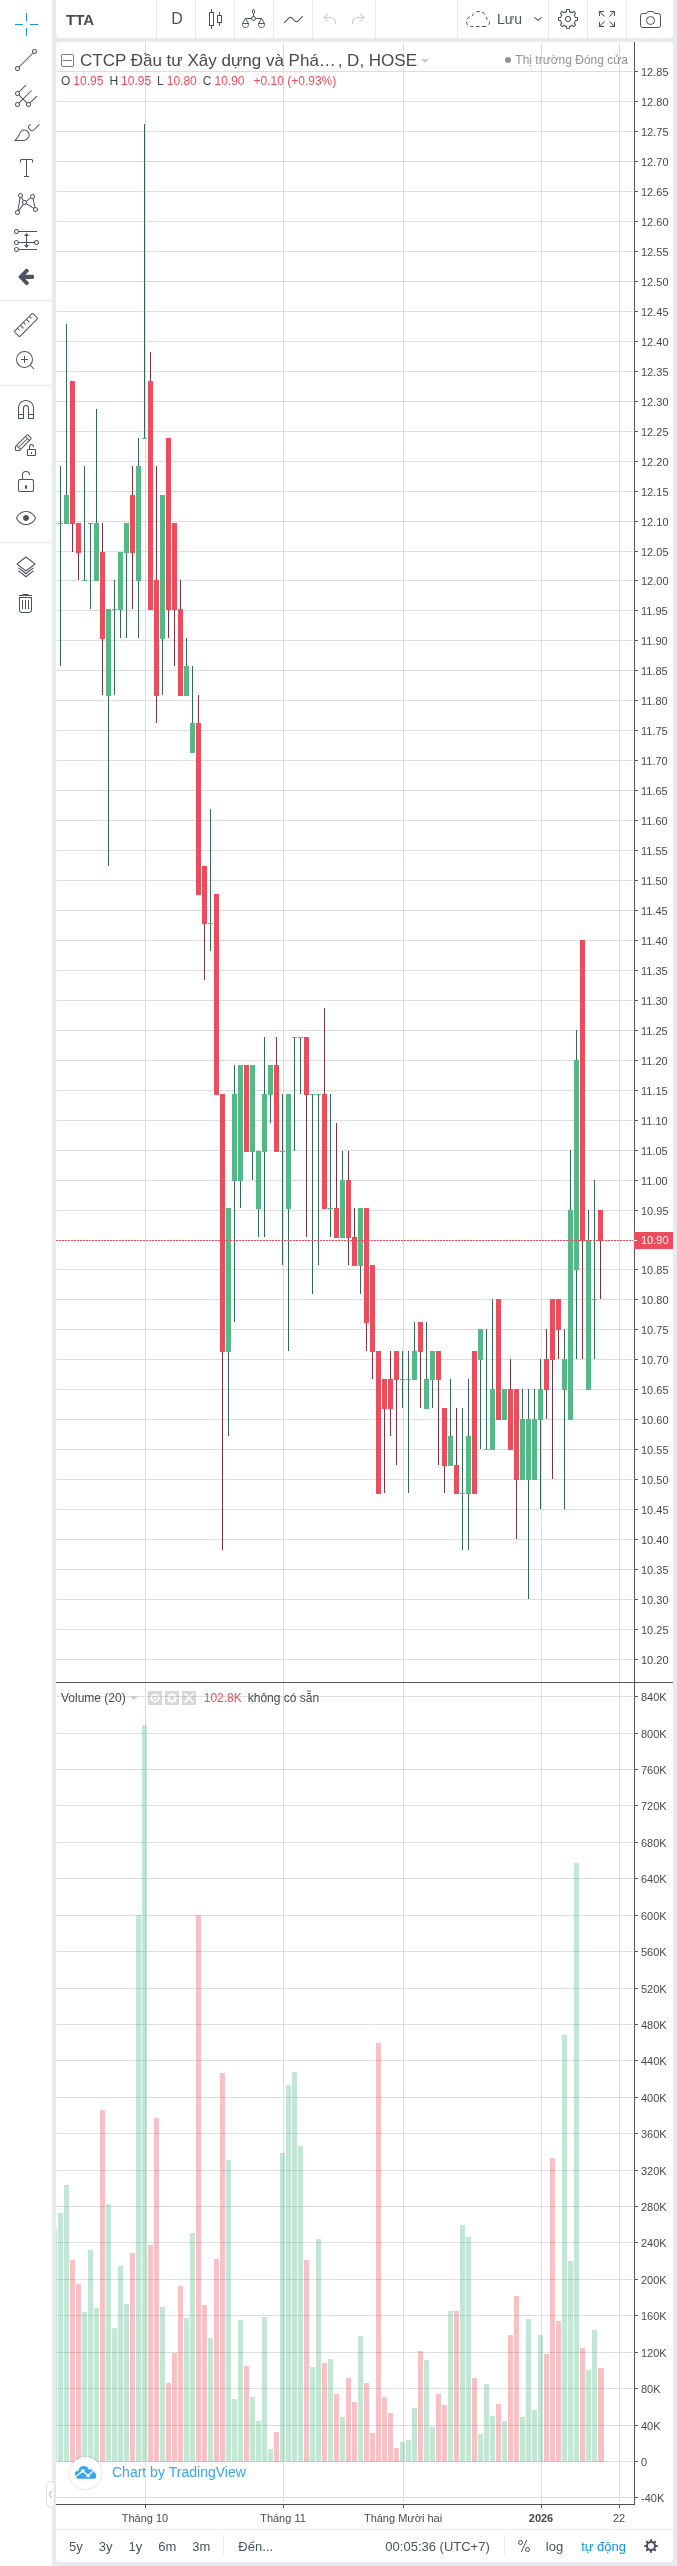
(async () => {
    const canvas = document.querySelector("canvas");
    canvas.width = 677;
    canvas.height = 2566;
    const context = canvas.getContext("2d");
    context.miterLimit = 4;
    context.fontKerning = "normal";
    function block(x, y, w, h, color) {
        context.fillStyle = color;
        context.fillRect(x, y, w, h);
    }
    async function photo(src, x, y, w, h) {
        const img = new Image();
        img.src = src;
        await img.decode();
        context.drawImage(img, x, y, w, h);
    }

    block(0, 0, 677, 2566, "rgb(255, 255, 255)");
    await photo("media/1.png", 0, 0, 677, 2566);
})();
